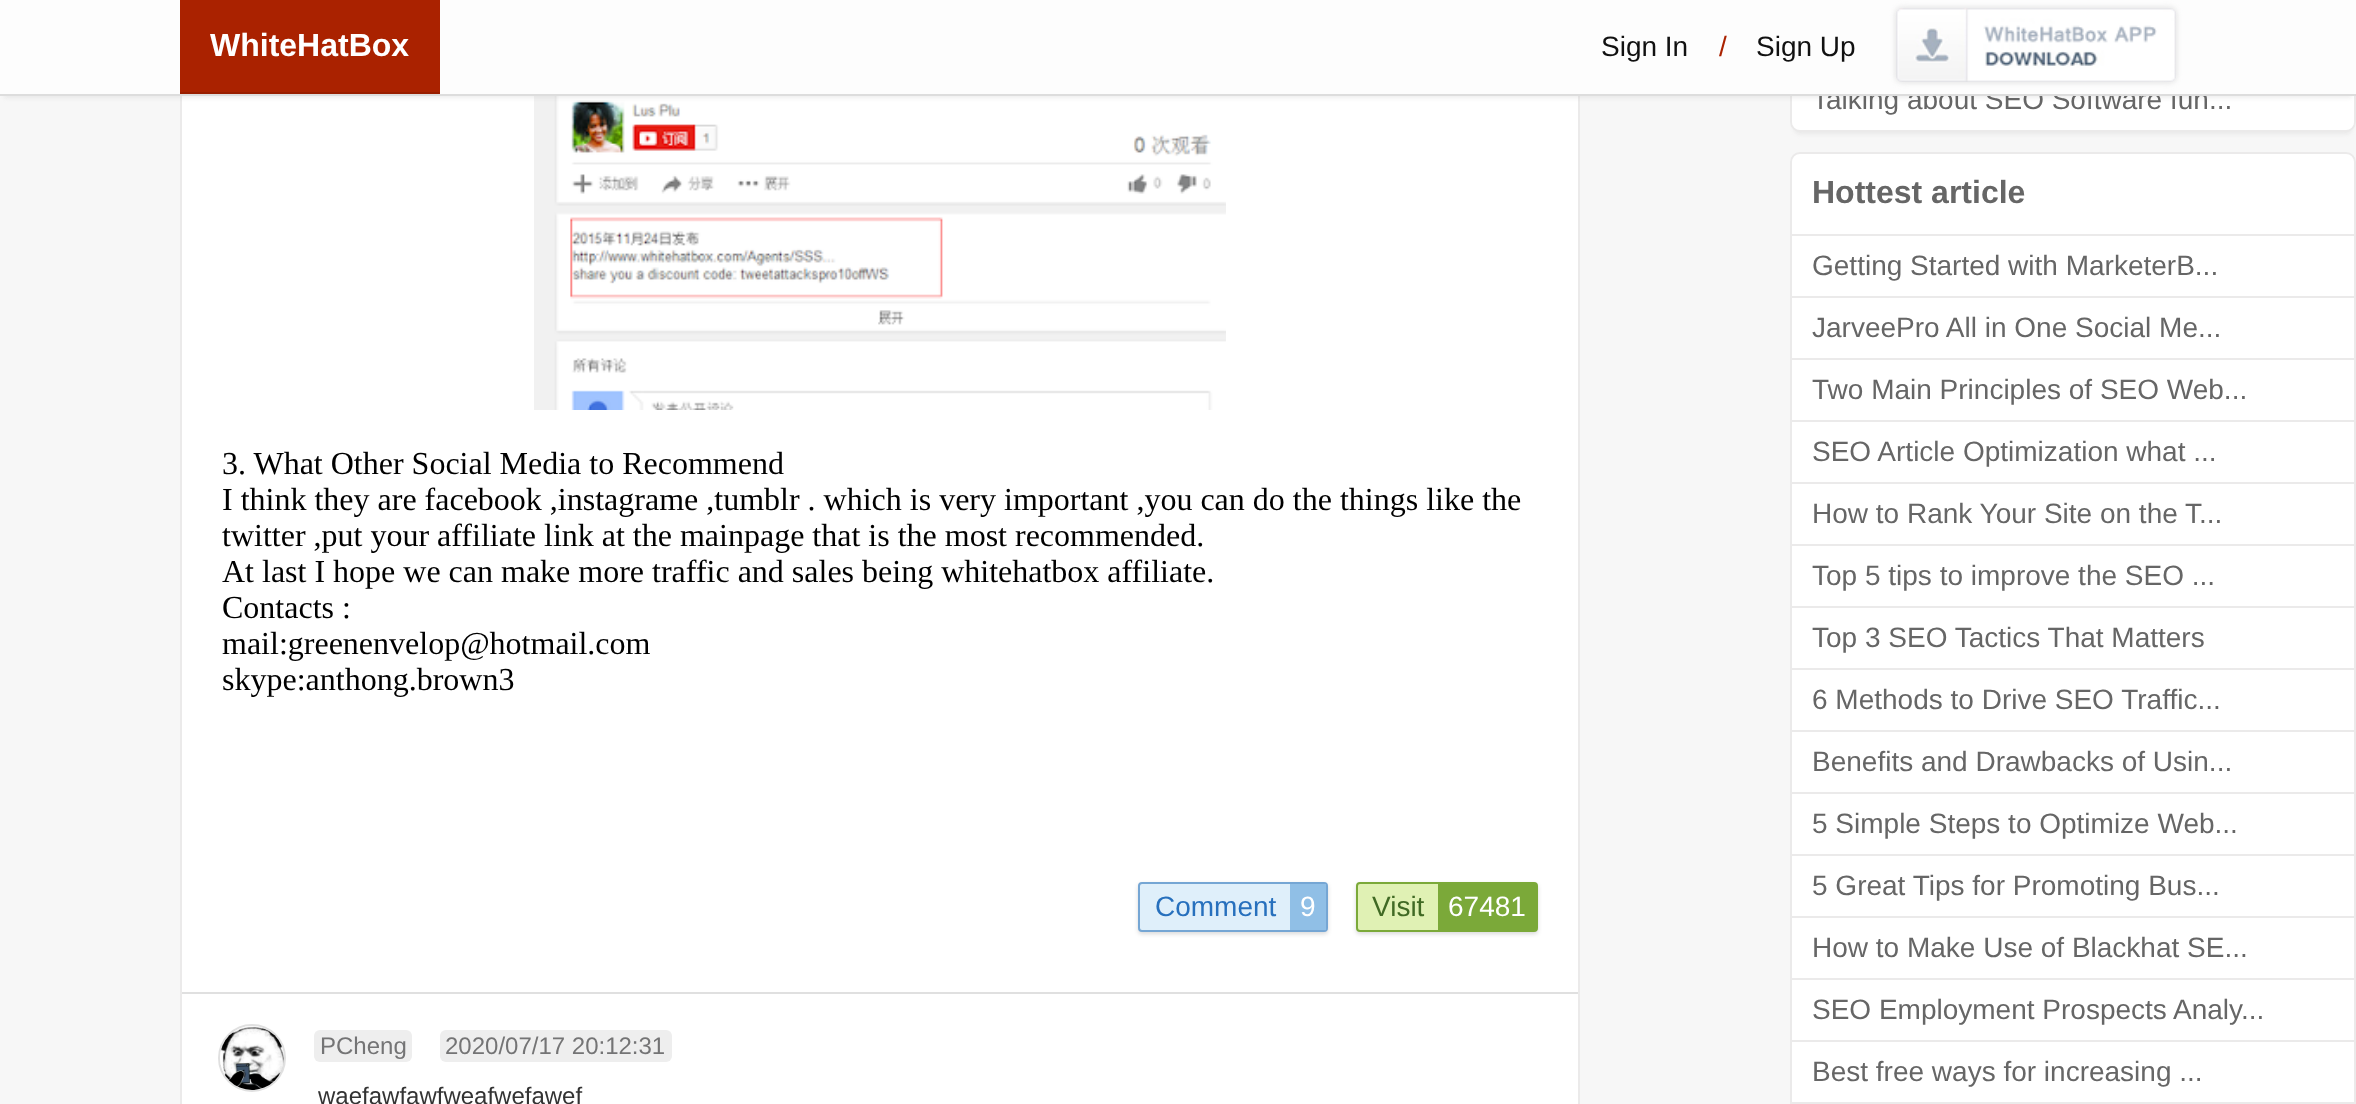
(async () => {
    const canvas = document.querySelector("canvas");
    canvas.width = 2356;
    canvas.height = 1104;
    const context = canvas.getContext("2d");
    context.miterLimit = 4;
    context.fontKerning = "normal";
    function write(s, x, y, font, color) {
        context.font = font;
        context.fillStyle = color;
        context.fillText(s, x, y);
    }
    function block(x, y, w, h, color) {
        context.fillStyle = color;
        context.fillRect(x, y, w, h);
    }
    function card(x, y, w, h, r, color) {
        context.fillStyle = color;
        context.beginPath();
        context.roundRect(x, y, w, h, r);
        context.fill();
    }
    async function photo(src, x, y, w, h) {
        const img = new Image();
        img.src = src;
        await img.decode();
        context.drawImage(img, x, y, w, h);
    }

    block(0, 0, 2356, 1104, "rgb(247, 247, 247)");
    block(182, 96, 1396, 1008, "rgb(255, 255, 255)");
    context.strokeStyle = "rgb(235, 234, 234)";
    context.lineWidth = 2;
    context.strokeRect(181, -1, 1398, 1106);
    await photo("media/2.png", 534, 96, 692, 314);
    context.fillStyle = "rgba(200, 200, 200, 0.3)";
    context.filter = "blur(2px)";
    context.beginPath();
    context.roundRect(1794, -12, 558, 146, 6);
    context.fill();
    context.filter = "none";
    context.beginPath();
    context.roundRect(1791, -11, 564, 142, 9);
    context.stroke();
    context.fillStyle = "rgb(255, 255, 255)";
    context.beginPath();
    context.roundRect(1792, 68, 562, 62, [0, 0, 8, 8]);
    context.fill();
    context.fillStyle = "rgba(200, 200, 200, 0.3)";
    context.filter = "blur(2px)";
    context.beginPath();
    context.rect(4, 10, 2348, 88);
    context.fill();
    context.filter = "none";
    write("Talking about SEO Software fun...", 1812, 109, "28px Liberation Sans", "rgb(102, 102, 102)");
    block(0, 0, 2356, 94, "rgb(253, 253, 253)");
    block(0, 94, 2356, 2, "rgb(221, 221, 221)");
    block(180, 0, 260, 92, "rgb(170, 34, 0)");
    block(180, 92, 260, 2, "rgb(153, 31, 0)");
    write("WhiteHatBox", 210, 56, "bold 32px Liberation Sans", "rgb(255, 255, 255)");
    write("Sign In", 1601, 56, "28px Liberation Sans", "rgb(17, 17, 17)");
    write("/", 1719, 56, "28px Liberation Sans", "rgb(170, 34, 0)");
    write("Sign Up", 1756, 56, "28px Liberation Sans", "rgb(17, 17, 17)");
    context.fillStyle = "rgb(221, 221, 221)";
    context.filter = "blur(3px)";
    context.beginPath();
    context.roundRect(1896, 8, 280, 74, 6);
    context.fill();
    context.filter = "none";
    await photo("media/1.png", 1896, 8, 280, 74);
    write("3. What Other Social Media to Recommend", 222, 474, "32px Liberation Serif", "rgb(0, 0, 0)");
    write("I think they are facebook ,instagrame ,tumblr . which is very important ,you can do the things like the", 222, 510, "32px Liberation Serif", "rgb(0, 0, 0)");
    write("twitter ,put your affiliate link at the mainpage that is the most recommended.", 222, 546, "32px Liberation Serif", "rgb(0, 0, 0)");
    write("At last I hope we can make more traffic and sales being whitehatbox affiliate.", 222, 582, "32px Liberation Serif", "rgb(0, 0, 0)");
    write("Contacts :", 222, 618, "32px Liberation Serif", "rgb(0, 0, 0)");
    write("mail:greenenvelop@hotmail.com", 222, 654, "32px Liberation Serif", "rgb(0, 0, 0)");
    write("skype:anthong.brown3", 222, 690, "32px Liberation Serif", "rgb(0, 0, 0)");
    context.fillStyle = "rgba(0, 0, 0, 0.15)";
    context.filter = "blur(2px)";
    context.beginPath();
    context.roundRect(1138, 884, 190, 50, 4);
    context.fill();
    context.filter = "none";
    context.fillStyle = "rgb(223, 239, 250)";
    context.beginPath();
    context.roundRect(1139, 883, 188, 48, 3);
    context.fill();
    context.strokeStyle = "rgb(117, 166, 212)";
    context.stroke();
    write("Comment", 1155, 916, "28px Liberation Sans", "rgb(39, 112, 189)");
    block(1290, 884, 36, 46, "rgb(144, 191, 230)");
    write("9", 1300, 916, "28px Liberation Sans", "rgb(255, 255, 255)");
    context.fillStyle = "rgba(0, 0, 0, 0.15)";
    context.filter = "blur(2px)";
    context.beginPath();
    context.roundRect(1356, 884, 182, 50, 4);
    context.fill();
    context.filter = "none";
    context.fillStyle = "rgb(224, 241, 180)";
    context.beginPath();
    context.roundRect(1357, 883, 180, 48, 3);
    context.fill();
    context.strokeStyle = "rgb(123, 169, 57)";
    context.stroke();
    write("Visit", 1372, 916, "28px Liberation Sans", "rgb(64, 106, 36)");
    block(1438, 884, 98, 46, "rgb(123, 169, 57)");
    write("67481", 1448, 916, "28px Liberation Sans", "rgb(255, 255, 255)");
    block(182, 992, 1396, 2, "rgb(224, 224, 224)");
    context.fillStyle = "rgb(247, 247, 247)";
    context.beginPath();
    context.arc(252, 1058, 33, 0, Math.PI * 2);
    context.fill();
    context.strokeStyle = "rgb(224, 224, 224)";
    context.stroke();
    await photo("media/3.png", 220, 1026, 64, 64);
    card(314, 1030, 98, 32, 6, "rgb(238, 238, 238)");
    write("PCheng", 320, 1054, "24px Liberation Sans", "rgb(116, 116, 117)");
    card(440, 1030, 232, 32, 6, "rgb(238, 238, 238)");
    write("2020/07/17 20:12:31", 445, 1054, "24px Liberation Sans", "rgb(116, 116, 117)");
    write("waefawfawfweafwefawef", 318, 1104, "24px Liberation Sans", "rgb(51, 51, 51)");
    context.fillStyle = "rgb(255, 255, 255)";
    context.beginPath();
    context.roundRect(1791, 153, 564, 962, 9);
    context.fill();
    context.strokeStyle = "rgb(235, 234, 234)";
    context.stroke();
    write("Hottest article", 1812, 203, "bold 32px Liberation Sans", "rgb(102, 102, 102)");
    block(1792, 234, 562, 2, "rgb(235, 234, 234)");
    write("Getting Started with MarketerB...", 1812, 275, "28px Liberation Sans", "rgb(102, 102, 102)");
    block(1792, 296, 562, 2, "rgb(235, 234, 234)");
    write("JarveePro All in One Social Me...", 1812, 337, "28px Liberation Sans", "rgb(102, 102, 102)");
    block(1792, 358, 562, 2, "rgb(235, 234, 234)");
    write("Two Main Principles of SEO Web...", 1812, 399, "28px Liberation Sans", "rgb(102, 102, 102)");
    block(1792, 420, 562, 2, "rgb(235, 234, 234)");
    write("SEO Article Optimization what ...", 1812, 461, "28px Liberation Sans", "rgb(102, 102, 102)");
    block(1792, 482, 562, 2, "rgb(235, 234, 234)");
    write("How to Rank Your Site on the T...", 1812, 523, "28px Liberation Sans", "rgb(102, 102, 102)");
    block(1792, 544, 562, 2, "rgb(235, 234, 234)");
    write("Top 5 tips to improve the SEO ...", 1812, 585, "28px Liberation Sans", "rgb(102, 102, 102)");
    block(1792, 606, 562, 2, "rgb(235, 234, 234)");
    write("Top 3 SEO Tactics That Matters", 1812, 647, "28px Liberation Sans", "rgb(102, 102, 102)");
    block(1792, 668, 562, 2, "rgb(235, 234, 234)");
    write("6 Methods to Drive SEO Traffic...", 1812, 709, "28px Liberation Sans", "rgb(102, 102, 102)");
    block(1792, 730, 562, 2, "rgb(235, 234, 234)");
    write("Benefits and Drawbacks of Usin...", 1812, 771, "28px Liberation Sans", "rgb(102, 102, 102)");
    block(1792, 792, 562, 2, "rgb(235, 234, 234)");
    write("5 Simple Steps to Optimize Web...", 1812, 833, "28px Liberation Sans", "rgb(102, 102, 102)");
    block(1792, 854, 562, 2, "rgb(235, 234, 234)");
    write("5 Great Tips for Promoting Bus...", 1812, 895, "28px Liberation Sans", "rgb(102, 102, 102)");
    block(1792, 916, 562, 2, "rgb(235, 234, 234)");
    write("How to Make Use of Blackhat SE...", 1812, 957, "28px Liberation Sans", "rgb(102, 102, 102)");
    block(1792, 978, 562, 2, "rgb(235, 234, 234)");
    write("SEO Employment Prospects Analy...", 1812, 1019, "28px Liberation Sans", "rgb(102, 102, 102)");
    block(1792, 1040, 562, 2, "rgb(235, 234, 234)");
    write("Best free ways for increasing ...", 1812, 1081, "28px Liberation Sans", "rgb(102, 102, 102)");
    block(1792, 1102, 562, 2, "rgb(235, 234, 234)");
})();
